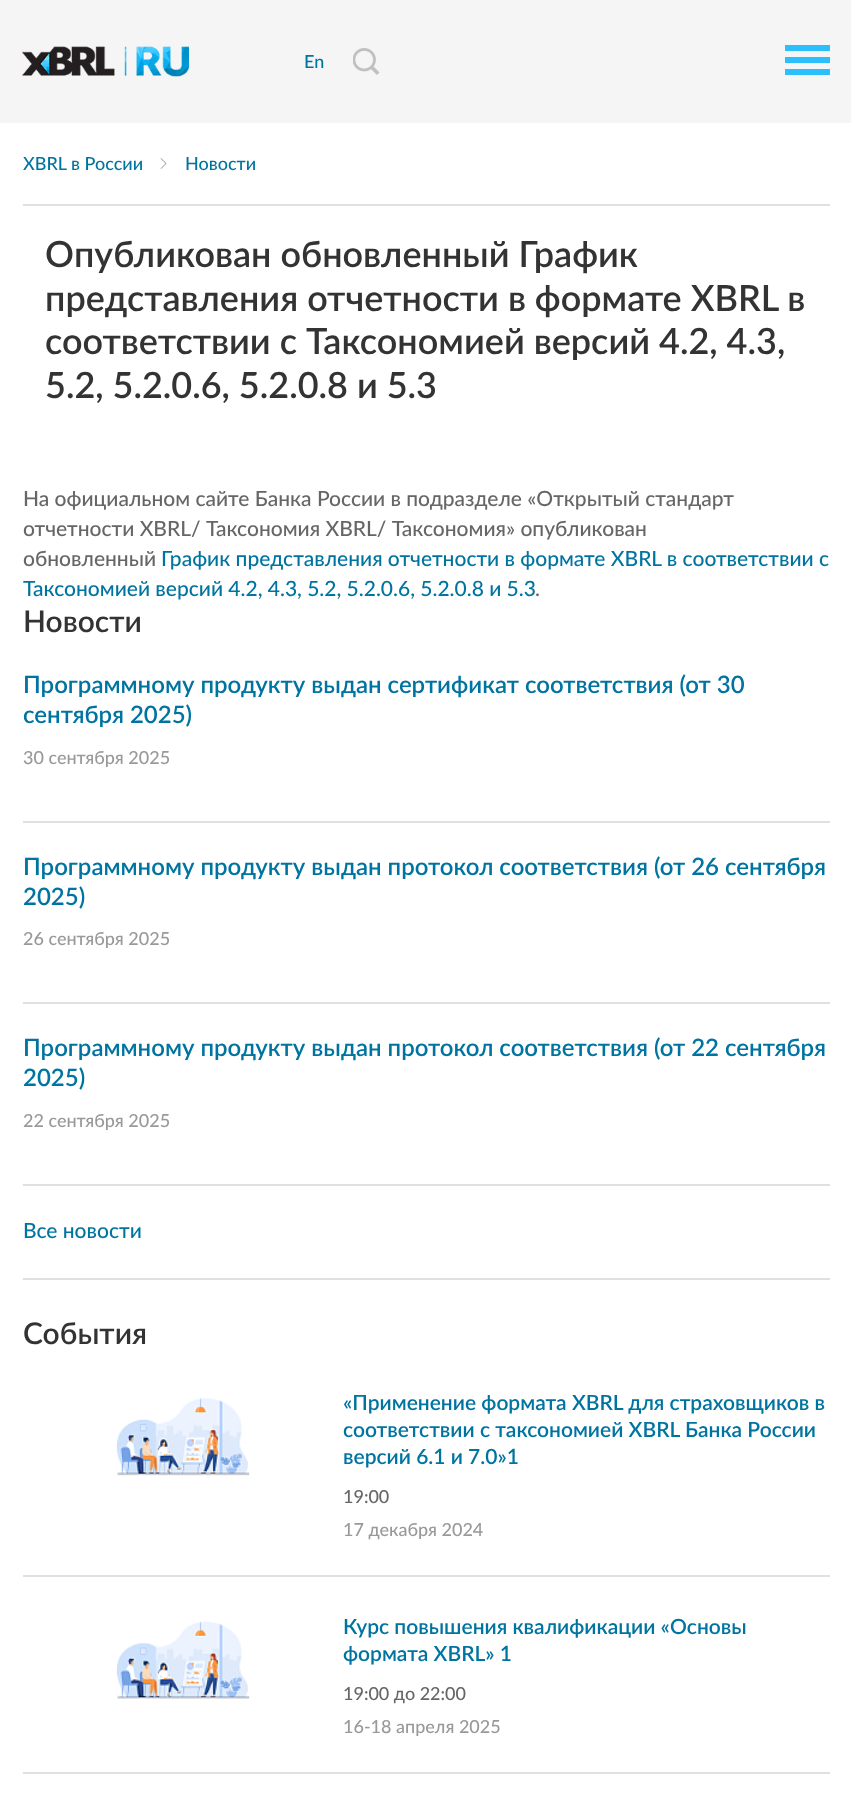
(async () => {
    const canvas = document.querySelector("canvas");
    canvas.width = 851;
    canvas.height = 1800;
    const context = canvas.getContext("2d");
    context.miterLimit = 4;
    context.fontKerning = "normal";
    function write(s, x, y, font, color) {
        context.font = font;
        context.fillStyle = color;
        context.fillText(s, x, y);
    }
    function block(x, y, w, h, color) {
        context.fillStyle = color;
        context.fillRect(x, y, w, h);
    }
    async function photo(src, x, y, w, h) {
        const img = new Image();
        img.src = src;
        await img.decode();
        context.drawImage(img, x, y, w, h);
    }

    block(0, 0, 851, 1800, "rgb(255, 255, 255)");
    block(0, 0, 851, 123, "rgb(245, 245, 245)");
    await photo("media/1.png", 22, 46, 167, 31);
    write("En", 304, 68, "500 18px Lato", "rgb(0, 116, 161)");
    await photo("media/2.png", 353, 48, 27, 27);
    block(785, 45, 45, 6, "rgb(43, 192, 253)");
    block(785, 57, 45, 6, "rgb(43, 192, 253)");
    block(785, 69, 45, 6, "rgb(43, 192, 253)");
    block(23, 204, 807, 2, "rgb(224, 224, 224)");
    write("XBRL в России", 23, 170, "500 18px Lato", "rgb(0, 116, 161)");
    await photo("media/3.png", 160, 158, 7, 11);
    write("Новости", 185, 170, "500 18px Lato", "rgb(0, 116, 161)");
    write("Опубликован обновленный График", 45, 267, "600 36px Lato", "rgb(51, 51, 51)");
    write("представления отчетности в формате XBRL в", 45, 311, "600 36px Lato", "rgb(51, 51, 51)");
    write("соответствии с Таксономией версий 4.2, 4.3,", 45, 354, "600 36px Lato", "rgb(51, 51, 51)");
    write("5.2, 5.2.0.6, 5.2.0.8 и 5.3", 45, 398, "600 36px Lato", "rgb(51, 51, 51)");
    write("На официальном сайте Банка России в подразделе «Открытый стандарт", 23, 506, "500 21px Lato", "rgb(102, 102, 102)");
    write("отчетности XBRL/ Таксономия XBRL/ Таксономия» опубликован", 23, 536, "500 21px Lato", "rgb(102, 102, 102)");
    write("обновленный", 23, 566, "500 21px Lato", "rgb(102, 102, 102)");
    write("График представления отчетности в формате XBRL в соответствии с", 161, 566, "500 21px Lato", "rgb(0, 116, 161)");
    write("Таксономией версий 4.2, 4.3, 5.2, 5.2.0.6, 5.2.0.8 и 5.3", 23, 596, "500 21px Lato", "rgb(0, 116, 161)");
    write(".", 535, 596, "500 21px Lato", "rgb(102, 102, 102)");
    write("Новости", 23, 632, "600 30px Lato", "rgb(51, 51, 51)");
    block(23, 821, 807, 2, "rgb(224, 224, 224)");
    write("Программному продукту выдан сертификат соответствия (от 30", 23, 693, "600 24px Lato", "rgb(0, 116, 161)");
    write("сентября 2025)", 23, 723, "600 24px Lato", "rgb(0, 116, 161)");
    write("30 сентября 2025", 23, 764, "500 18px Lato", "rgb(153, 153, 153)");
    block(23, 1002, 807, 2, "rgb(224, 224, 224)");
    write("Программному продукту выдан протокол соответствия (от 26 сентября", 23, 875, "600 24px Lato", "rgb(0, 116, 161)");
    write("2025)", 23, 905, "600 24px Lato", "rgb(0, 116, 161)");
    write("26 сентября 2025", 23, 945, "500 18px Lato", "rgb(153, 153, 153)");
    block(23, 1184, 807, 2, "rgb(224, 224, 224)");
    write("Программному продукту выдан протокол соответствия (от 22 сентября", 23, 1056, "600 24px Lato", "rgb(0, 116, 161)");
    write("2025)", 23, 1086, "600 24px Lato", "rgb(0, 116, 161)");
    write("22 сентября 2025", 23, 1127, "500 18px Lato", "rgb(153, 153, 153)");
    write("Все новости", 23, 1238, "500 21px Lato", "rgb(0, 116, 161)");
    block(23, 1278, 807, 2, "rgb(224, 224, 224)");
    write("События", 23, 1344, "600 30px Lato", "rgb(51, 51, 51)");
    block(23, 1575, 807, 2, "rgb(224, 224, 224)");
    await photo("media/4.png", 116, 1398, 134, 78);
    write("«Применение формата XBRL для страховщиков в", 343, 1410, "600 21px Lato", "rgb(0, 116, 161)");
    write("соответствии с таксономией XBRL Банка России", 343, 1437, "600 21px Lato", "rgb(0, 116, 161)");
    write("версий 6.1 и 7.0»1", 343, 1464, "600 21px Lato", "rgb(0, 116, 161)");
    write("19:00", 343, 1503, "500 18px Lato", "rgb(102, 102, 102)");
    write("17 декабря 2024", 343, 1536, "500 18px Lato", "rgb(153, 153, 153)");
    block(23, 1772, 807, 2, "rgb(224, 224, 224)");
    await photo("media/5.png", 116, 1621, 134, 78);
    write("Курс повышения квалификации «Основы", 343, 1634, "600 21px Lato", "rgb(0, 116, 161)");
    write("формата XBRL» 1", 343, 1661, "600 21px Lato", "rgb(0, 116, 161)");
    write("19:00 до 22:00", 343, 1700, "500 18px Lato", "rgb(102, 102, 102)");
    write("16-18 апреля 2025", 343, 1733, "500 18px Lato", "rgb(153, 153, 153)");
})();
